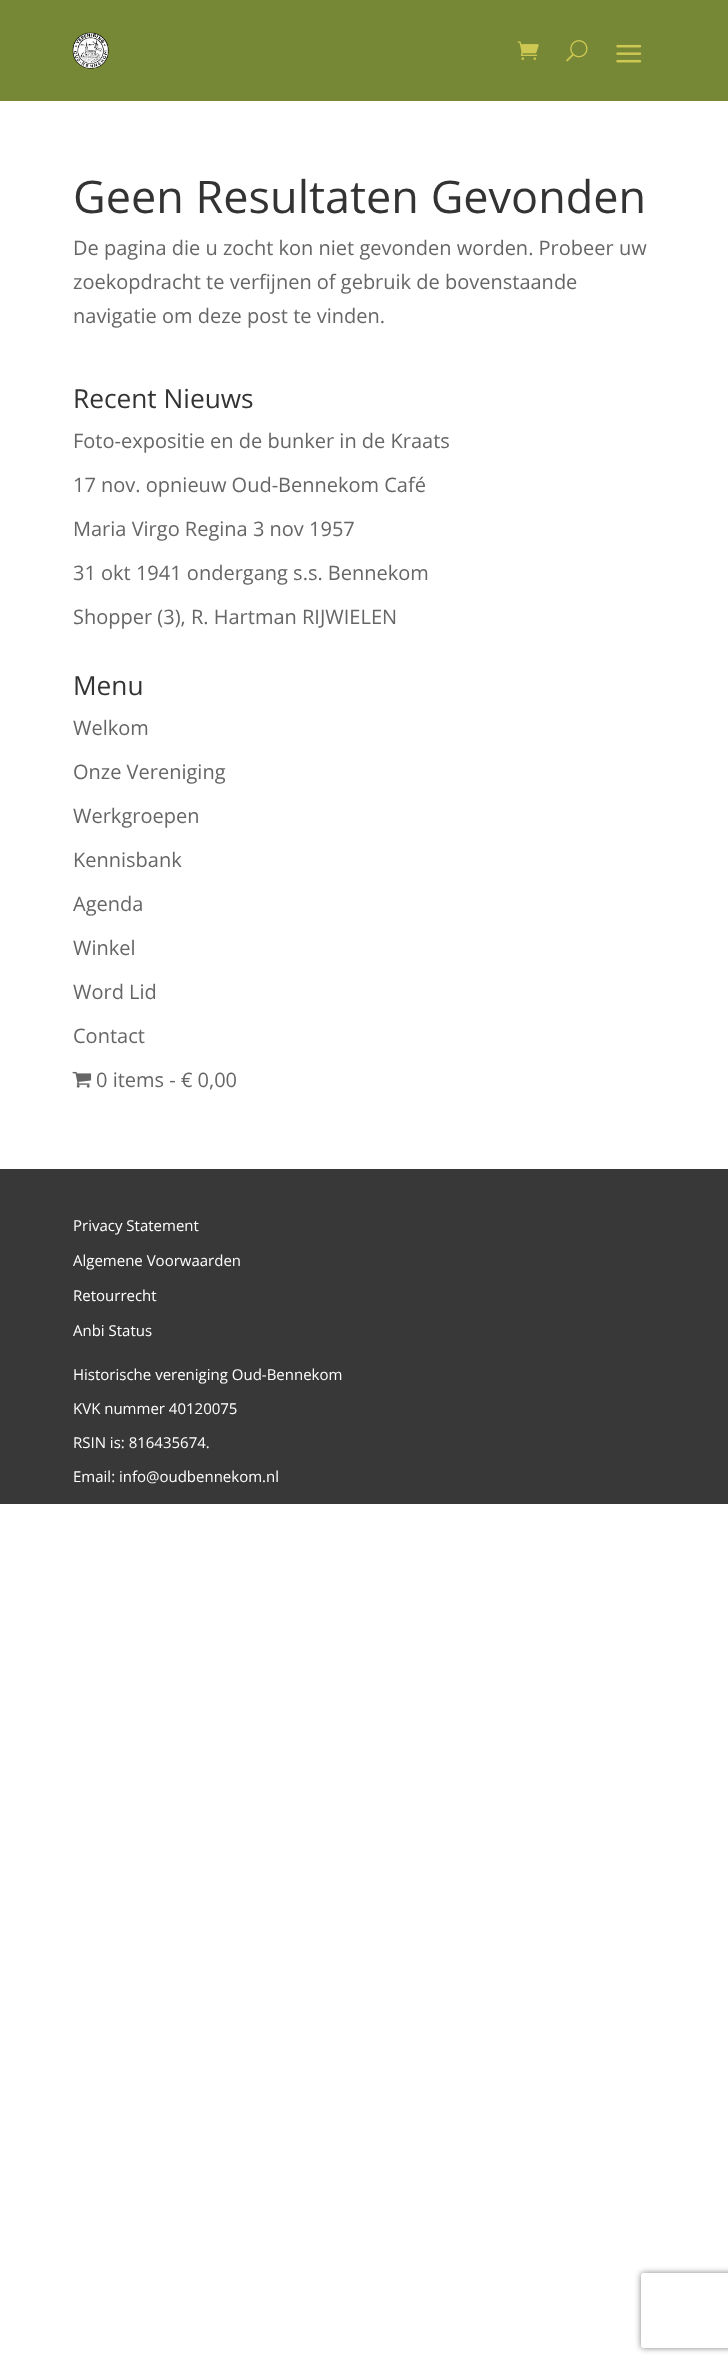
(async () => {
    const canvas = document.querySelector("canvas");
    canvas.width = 728;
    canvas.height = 2365;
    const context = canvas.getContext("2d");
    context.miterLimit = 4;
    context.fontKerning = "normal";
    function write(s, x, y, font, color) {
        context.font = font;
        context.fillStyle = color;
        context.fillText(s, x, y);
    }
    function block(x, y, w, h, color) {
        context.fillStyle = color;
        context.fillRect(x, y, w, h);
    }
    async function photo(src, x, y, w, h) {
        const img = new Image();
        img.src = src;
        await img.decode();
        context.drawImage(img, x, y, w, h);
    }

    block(0, 0, 728, 2365, "rgb(255, 255, 255)");
    block(0, 0, 728, 101, "rgb(118, 135, 54)");
    await photo("media/1.png", 72, 32, 37, 37);
    await photo("media/2.png", 517, 41, 22, 19);
    await photo("media/3.png", 566, 40, 22, 22);
    await photo("media/4.png", 616, 44, 26, 19);
    write("Geen Resultaten Gevonden", 73, 213, "45px Open Sans", "rgb(51, 51, 51)");
    write("De pagina die u zocht kon niet gevonden worden. Probeer uw", 73, 255, "20px Open Sans", "rgb(102, 102, 102)");
    write("zoekopdracht te verfijnen of gebruik de bovenstaande", 73, 289, "20px Open Sans", "rgb(102, 102, 102)");
    write("navigatie om deze post te vinden.", 73, 323, "20px Open Sans", "rgb(102, 102, 102)");
    write("Recent Nieuws", 73, 408, "26.25px Open Sans", "rgb(51, 51, 51)");
    write("Foto-expositie en de bunker in de Kraats", 73, 448, "20px Open Sans", "rgb(102, 102, 102)");
    write("17 nov. opnieuw Oud-Bennekom Café", 73, 492, "20px Open Sans", "rgb(102, 102, 102)");
    write("Maria Virgo Regina 3 nov 1957", 73, 536, "20px Open Sans", "rgb(102, 102, 102)");
    write("31 okt 1941 ondergang s.s. Bennekom", 73, 580, "20px Open Sans", "rgb(102, 102, 102)");
    write("Shopper (3), R. Hartman RIJWIELEN", 73, 624, "20px Open Sans", "rgb(102, 102, 102)");
    write("Menu", 73, 695, "26.25px Open Sans", "rgb(51, 51, 51)");
    write("Welkom", 73, 735, "20px Open Sans", "rgb(102, 102, 102)");
    write("Onze Vereniging", 73, 779, "20px Open Sans", "rgb(102, 102, 102)");
    write("Werkgroepen", 73, 823, "20px Open Sans", "rgb(102, 102, 102)");
    write("Kennisbank", 73, 867, "20px Open Sans", "rgb(102, 102, 102)");
    write("Agenda", 73, 911, "20px Open Sans", "rgb(102, 102, 102)");
    write("Winkel", 73, 955, "20px Open Sans", "rgb(102, 102, 102)");
    write("Word Lid", 73, 999, "20px Open Sans", "rgb(102, 102, 102)");
    write("Contact", 73, 1043, "20px Open Sans", "rgb(102, 102, 102)");
    await photo("media/5.png", 72, 1071, 20, 17);
    write("0 items - € 0,00", 96, 1087, "20px Open Sans", "rgb(102, 102, 102)");
    block(0, 1169, 728, 335, "rgb(56, 56, 56)");
    write("Privacy Statement", 73, 1231, "15px Open Sans", "rgb(255, 255, 255)");
    write("Algemene Voorwaarden", 73, 1266, "15px Open Sans", "rgb(255, 255, 255)");
    write("Retourrecht", 73, 1301, "15px Open Sans", "rgb(255, 255, 255)");
    write("Anbi Status", 73, 1336, "15px Open Sans", "rgb(255, 255, 255)");
    write("Historische vereniging Oud-Bennekom", 73, 1380, "15px Open Sans", "rgb(255, 255, 255)");
    write("KVK nummer 40120075", 73, 1414, "15px Open Sans", "rgb(255, 255, 255)");
    write("RSIN is: 816435674.", 73, 1448, "15px Open Sans", "rgb(255, 255, 255)");
    write("Email: info@oudbennekom.nl", 73, 1482, "15px Open Sans", "rgb(255, 255, 255)");
    context.save();
    context.beginPath();
    context.moveTo(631, 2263);
    context.lineTo(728, 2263);
    context.lineTo(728, 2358);
    context.lineTo(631, 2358);
    context.closePath();
    context.moveTo(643.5, 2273);
    context.lineTo(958.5, 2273);
    context.bezierCurveTo(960, 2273, 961, 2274, 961, 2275.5);
    context.lineTo(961, 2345.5);
    context.bezierCurveTo(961, 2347, 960, 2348, 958.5, 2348);
    context.lineTo(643.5, 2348);
    context.bezierCurveTo(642, 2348, 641, 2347, 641, 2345.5);
    context.lineTo(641, 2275.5);
    context.bezierCurveTo(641, 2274, 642, 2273, 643.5, 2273);
    context.closePath();
    context.clip("evenodd");
    context.fillStyle = "rgb(128, 128, 128)";
    context.filter = "blur(3px)";
    context.beginPath();
    context.roundRect(641, 2273, 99, 75, 2.5);
    context.fill();
    context.filter = "none";
    context.restore();
})();
